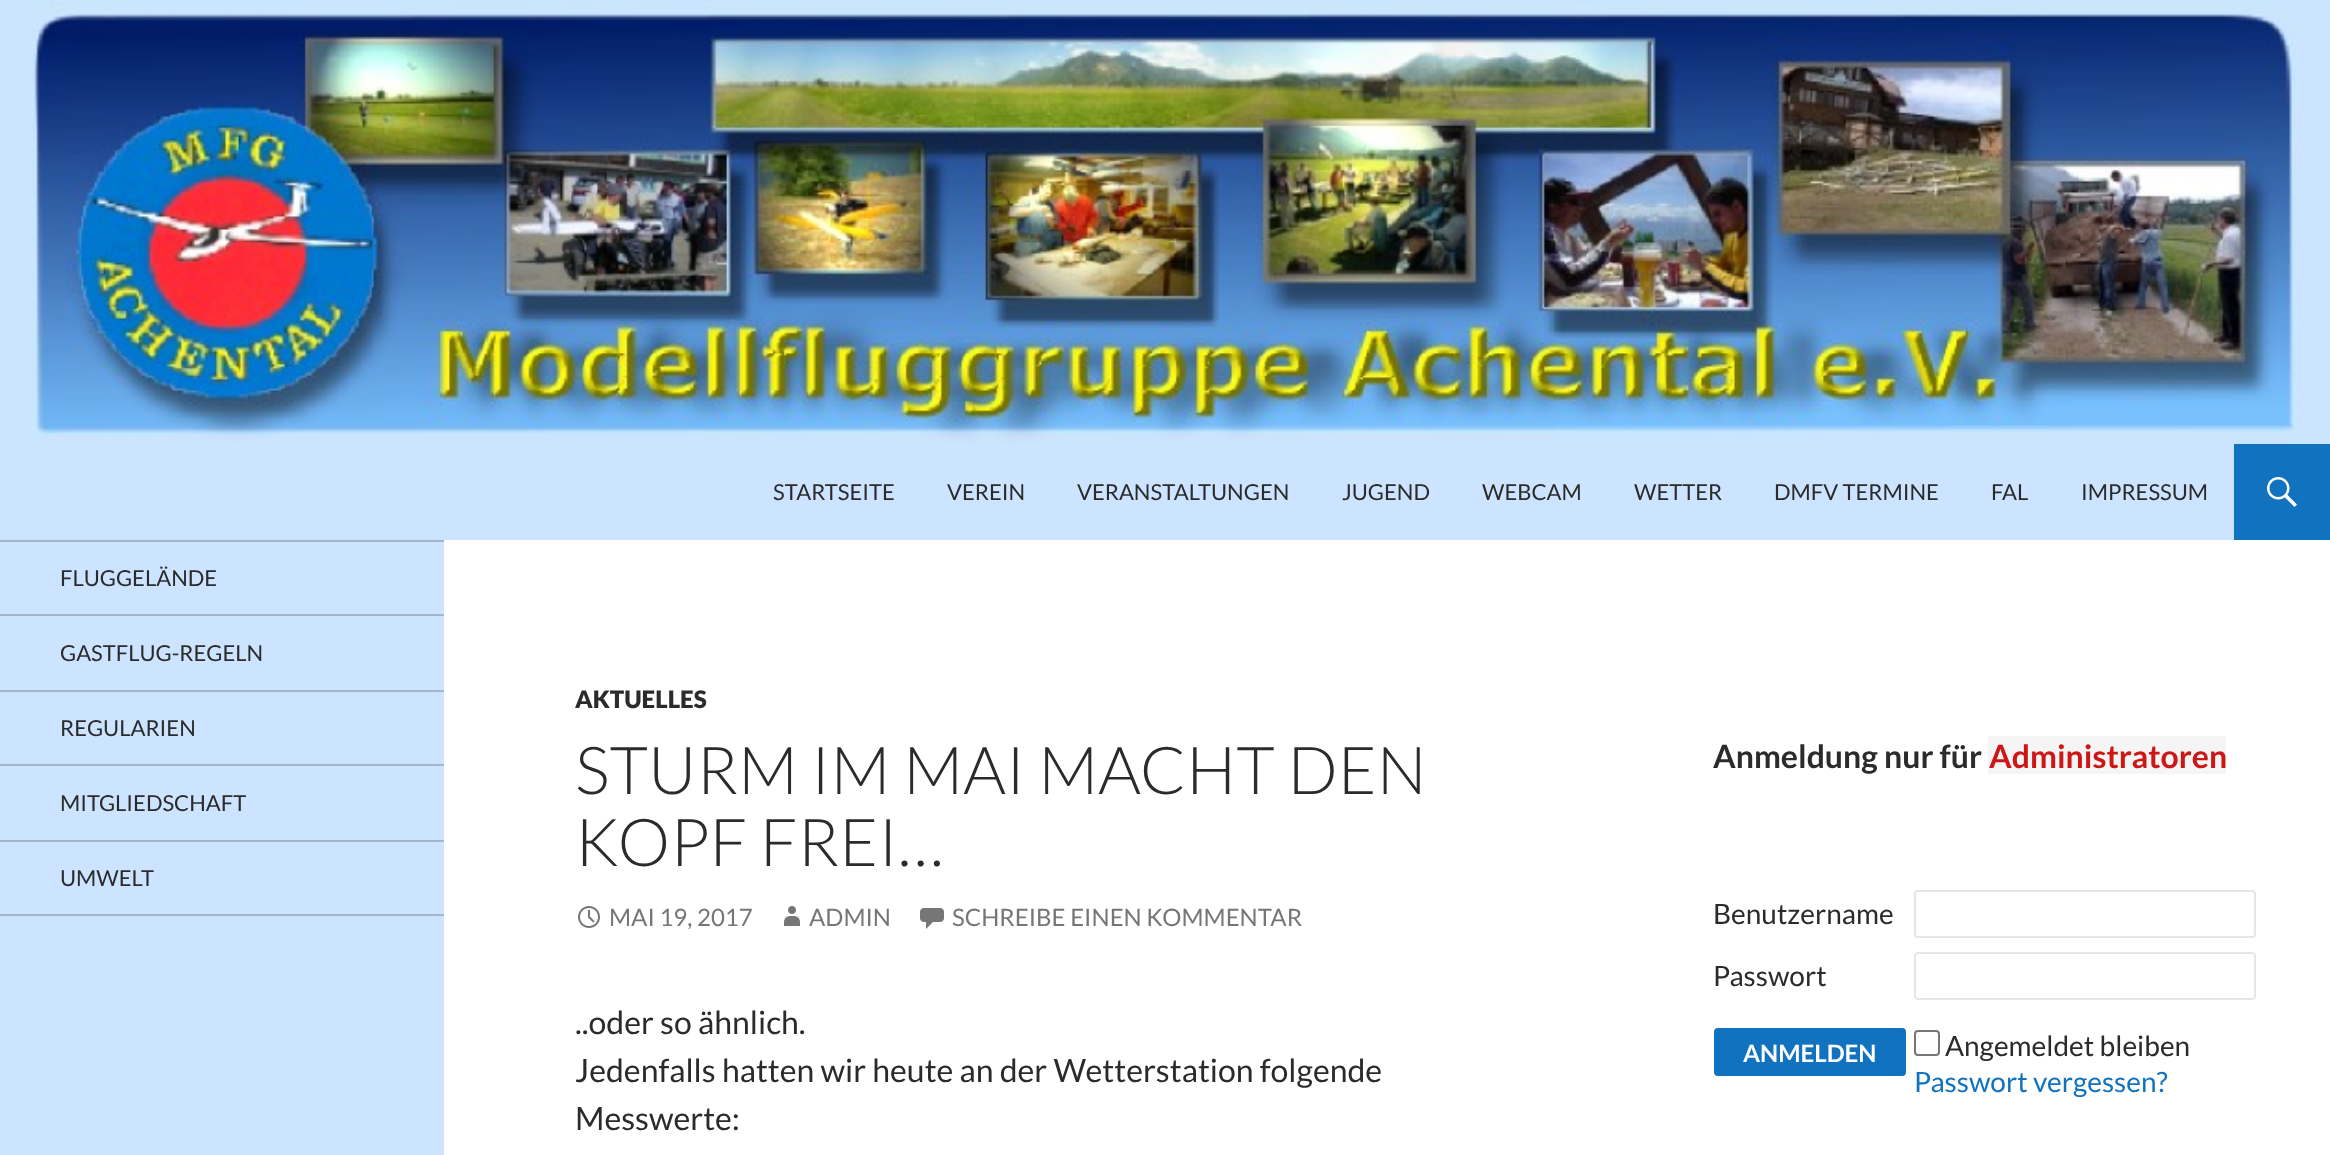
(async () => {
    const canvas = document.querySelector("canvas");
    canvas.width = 2330;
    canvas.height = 1155;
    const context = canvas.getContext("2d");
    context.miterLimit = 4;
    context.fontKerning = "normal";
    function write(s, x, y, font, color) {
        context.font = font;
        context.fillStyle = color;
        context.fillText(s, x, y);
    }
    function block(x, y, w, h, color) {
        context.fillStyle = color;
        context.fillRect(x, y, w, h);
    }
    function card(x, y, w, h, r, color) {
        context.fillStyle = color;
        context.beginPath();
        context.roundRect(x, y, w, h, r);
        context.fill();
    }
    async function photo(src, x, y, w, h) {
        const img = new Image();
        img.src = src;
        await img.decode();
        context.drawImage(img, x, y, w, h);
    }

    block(0, 0, 2330, 1155, "rgb(255, 255, 255)");
    block(0, 0, 444, 1155, "rgb(204, 228, 255)");
    await photo("media/1.png", 30, 0, 2300, 444);
    block(444, 444, 1790, 96, "rgb(204, 228, 255)");
    write("STARTSEITE", 773, 500, "22px Lato", "rgb(43, 43, 43)");
    write("VEREIN", 947, 500, "22px Lato", "rgb(43, 43, 43)");
    write("VERANSTALTUNGEN", 1077, 500, "22px Lato", "rgb(43, 43, 43)");
    write("JUGEND", 1342, 500, "22px Lato", "rgb(43, 43, 43)");
    write("WEBCAM", 1482, 500, "22px Lato", "rgb(43, 43, 43)");
    write("WETTER", 1634, 500, "22px Lato", "rgb(43, 43, 43)");
    write("DMFV TERMINE", 1774, 500, "22px Lato", "rgb(43, 43, 43)");
    write("FAL", 1991, 500, "22px Lato", "rgb(43, 43, 43)");
    write("IMPRESSUM", 2081, 500, "22px Lato", "rgb(43, 43, 43)");
    block(2234, 444, 96, 96, "rgb(17, 115, 191)");
    await photo("media/2.png", 2267, 477, 30, 30);
    block(0, 914, 444, 2, "rgb(163, 182, 204)");
    block(0, 540, 444, 2, "rgb(163, 182, 204)");
    write("FLUGGELÄNDE", 60, 586, "22px Lato", "rgb(43, 43, 43)");
    block(0, 614, 444, 2, "rgb(163, 182, 204)");
    write("GASTFLUG-REGELN", 60, 661, "22px Lato", "rgb(43, 43, 43)");
    block(0, 690, 444, 2, "rgb(163, 182, 204)");
    write("REGULARIEN", 60, 736, "22px Lato", "rgb(43, 43, 43)");
    block(0, 764, 444, 2, "rgb(163, 182, 204)");
    write("MITGLIEDSCHAFT", 60, 811, "22px Lato", "rgb(43, 43, 43)");
    block(0, 840, 444, 2, "rgb(163, 182, 204)");
    write("UMWELT", 60, 886, "22px Lato", "rgb(43, 43, 43)");
    write("AKTUELLES", 575, 708, "900 24px Lato", "rgb(43, 43, 43)");
    write("STURM IM MAI MACHT DEN", 575, 794, "300 66px Lato", "rgb(43, 43, 43)");
    write("KOPF FREI…", 575, 866, "300 66px Lato", "rgb(43, 43, 43)");
    await photo("media/3.png", 578, 906, 22, 22);
    write("MAI 19, 2017", 609, 926, "24px Lato", "rgb(118, 118, 118)");
    await photo("media/4.png", 784, 906, 16, 20);
    write("ADMIN", 809, 926, "24px Lato", "rgb(118, 118, 118)");
    await photo("media/5.png", 920, 908, 24, 21);
    write("SCHREIBE EINEN KOMMENTAR", 952, 926, "24px Lato", "rgb(118, 118, 118)");
    write("..oder so ähnlich.", 575, 1034, "32px Lato", "rgb(43, 43, 43)");
    write("Jedenfalls hatten wir heute an der Wetterstation folgende", 575, 1082, "32px Lato", "rgb(43, 43, 43)");
    write("Messwerte:", 575, 1130, "32px Lato", "rgb(43, 43, 43)");
    write("Anmeldung nur für", 1713, 768, "bold 32px Lato", "rgb(43, 43, 43)");
    block(1988, 736, 238, 38, "rgb(245, 245, 245)");
    write("Administratoren", 1989, 768, "bold 32px Lato", "rgb(207, 22, 22)");
    write("Benutzername", 1713, 924, "28px Lato", "rgb(43, 43, 43)");
    context.beginPath();
    context.roundRect(1915, 891, 340, 46, 3);
    context.strokeStyle = "rgb(230, 230, 230)";
    context.lineWidth = 2;
    context.stroke();
    write("Passwort", 1713, 986, "28px Lato", "rgb(43, 43, 43)");
    context.beginPath();
    context.roundRect(1915, 953, 340, 46, 3);
    context.stroke();
    card(1714, 1028, 192, 48, 4, "rgb(17, 115, 191)");
    write("ANMELDEN", 1743, 1062, "bold 24px Lato", "rgb(255, 255, 255)");
    context.beginPath();
    context.roundRect(1915, 1031, 24, 24, 3);
    context.strokeStyle = "rgb(118, 118, 118)";
    context.stroke();
    write("Angemeldet bleiben", 1945, 1056, "28px Lato", "rgb(43, 43, 43)");
    write("Passwort vergessen?", 1914, 1092, "28px Lato", "rgb(17, 115, 191)");
})();
